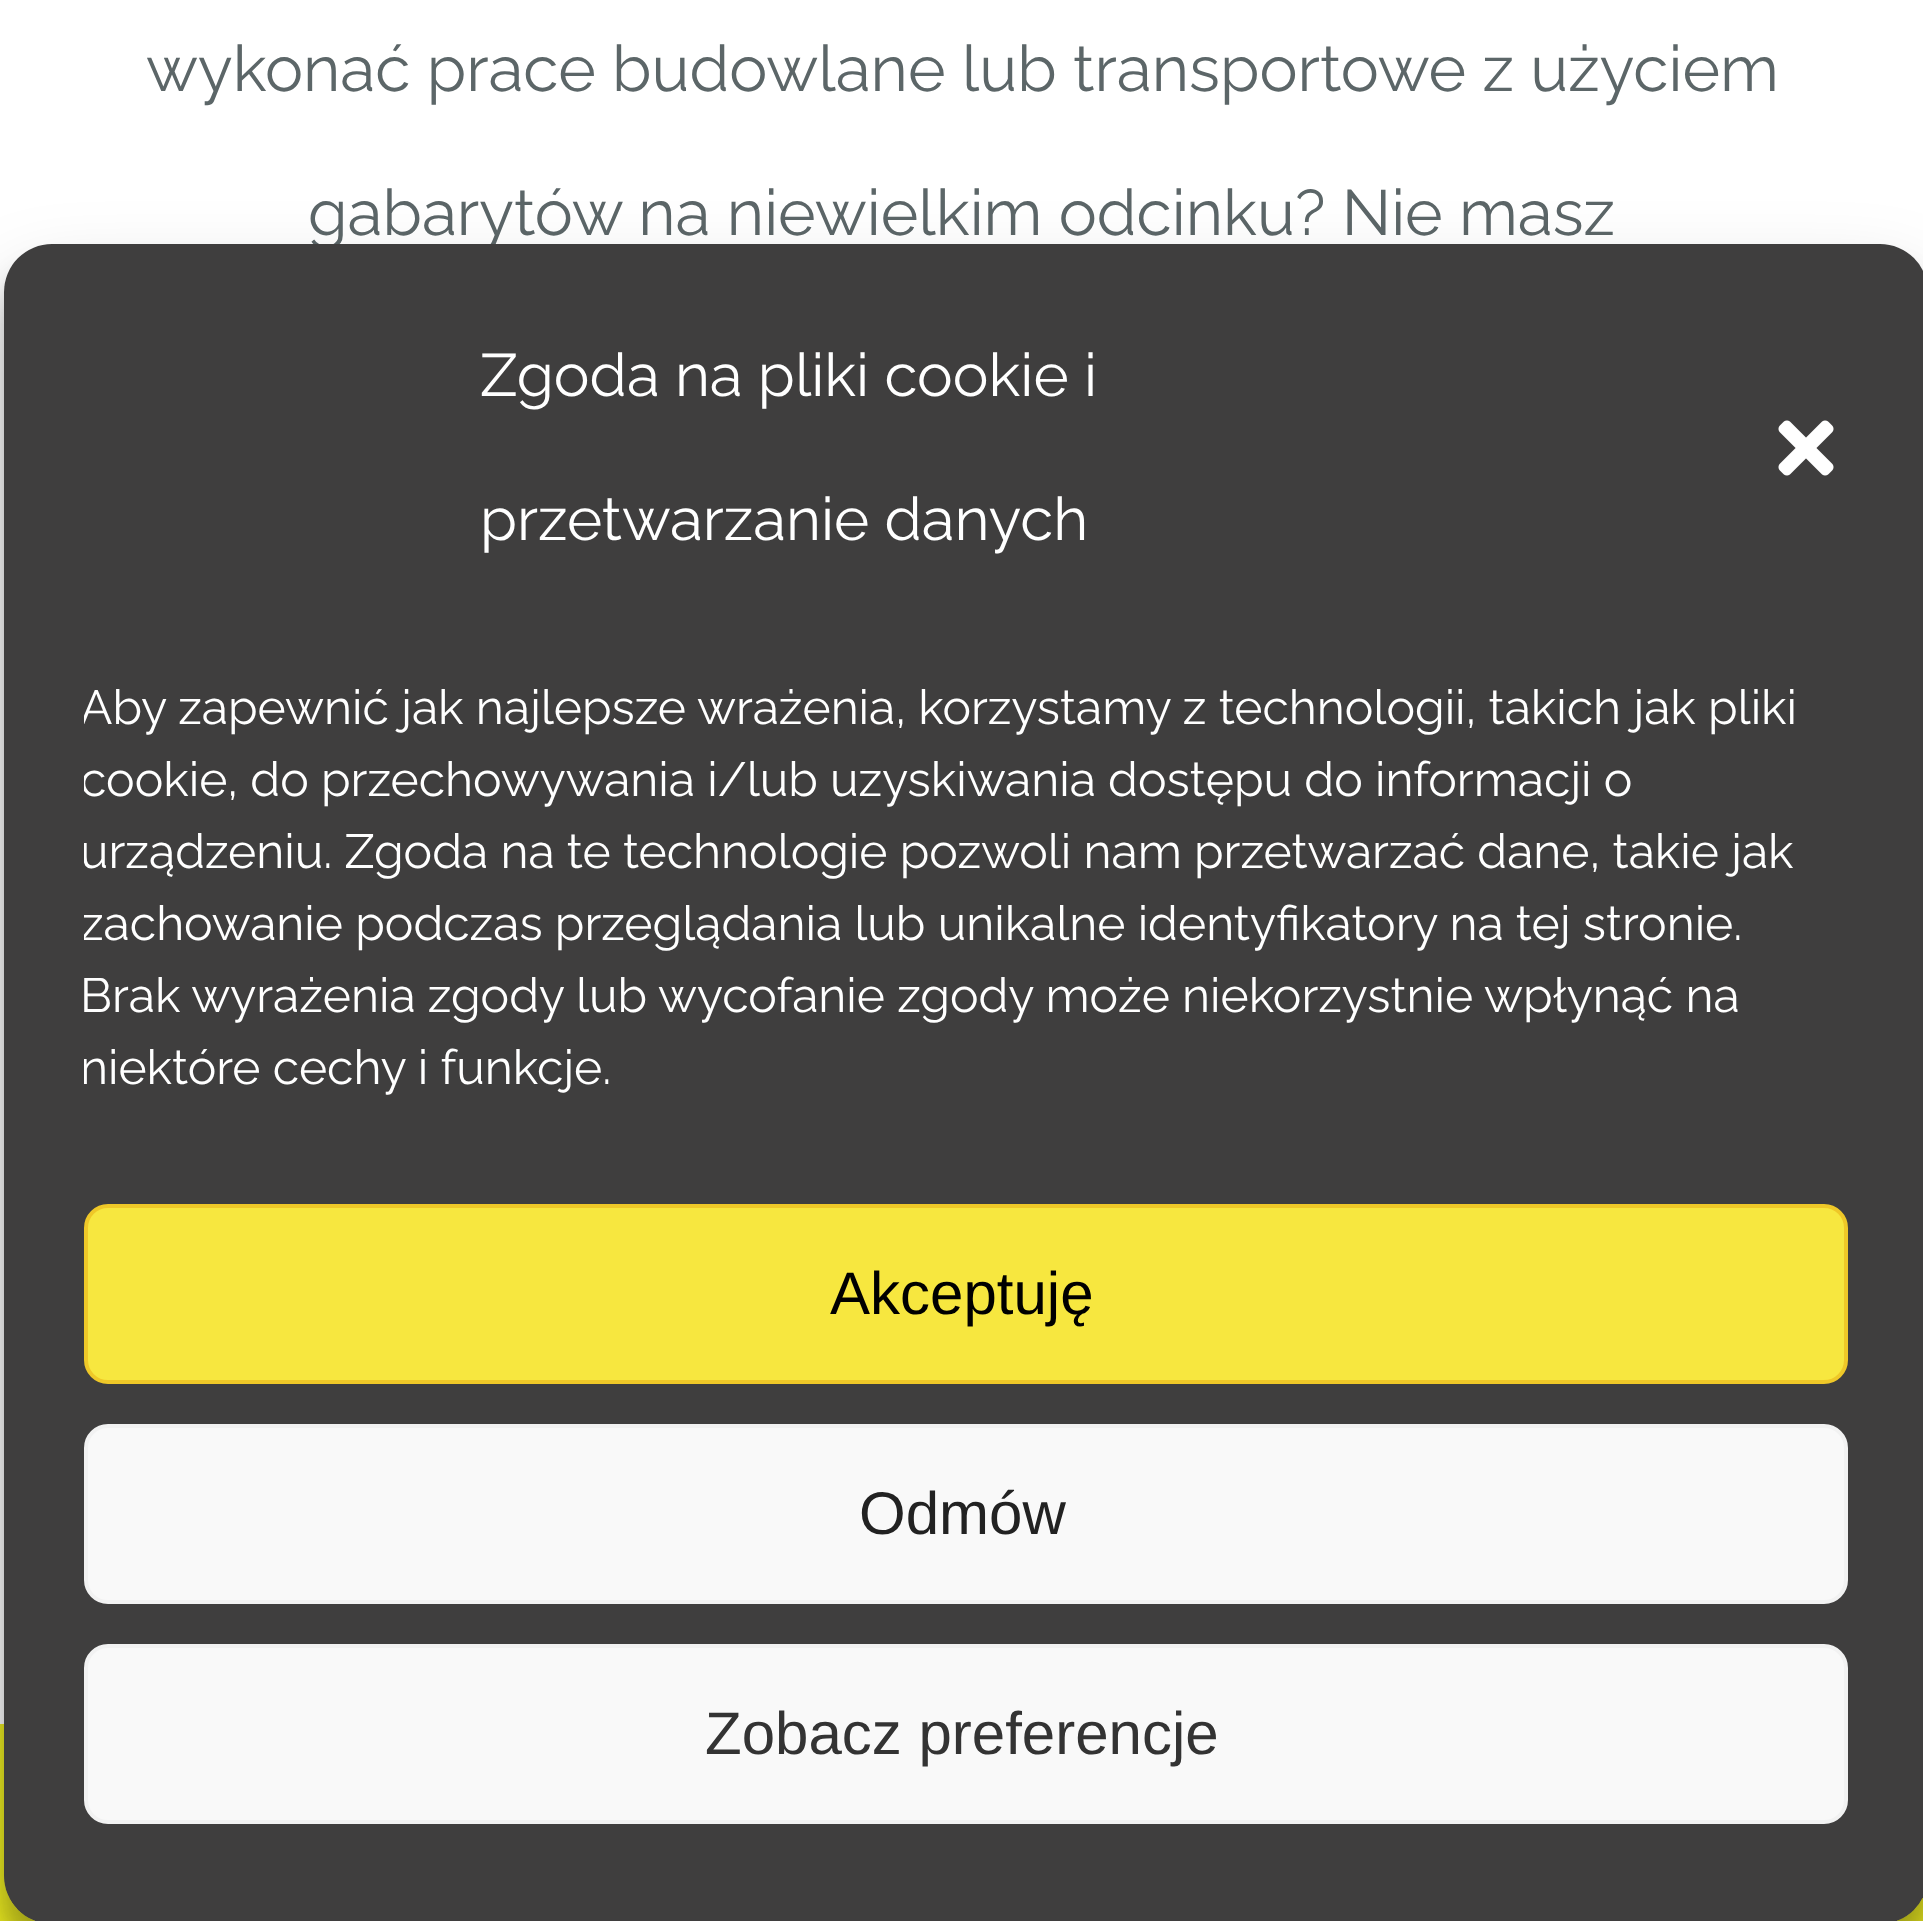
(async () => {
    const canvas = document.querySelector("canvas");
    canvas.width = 1923;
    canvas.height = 1921;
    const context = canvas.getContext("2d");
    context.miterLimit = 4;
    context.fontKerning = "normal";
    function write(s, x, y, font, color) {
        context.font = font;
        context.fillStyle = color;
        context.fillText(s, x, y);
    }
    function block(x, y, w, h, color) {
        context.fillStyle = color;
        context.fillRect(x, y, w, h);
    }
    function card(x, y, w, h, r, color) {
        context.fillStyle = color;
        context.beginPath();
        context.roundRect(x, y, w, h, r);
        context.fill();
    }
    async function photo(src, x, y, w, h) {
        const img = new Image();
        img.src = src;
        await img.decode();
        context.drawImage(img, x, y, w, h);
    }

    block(0, 0, 1923, 1921, "rgb(255, 255, 255)");
    write("wykonać prace budowlane lub transportowe z użyciem", 146, 91, "64px Raleway", "rgb(92, 102, 104)");
    write("gabarytów na niewielkim odcinku? Nie masz", 308, 235, "64px Raleway", "rgb(92, 102, 104)");
    block(0, 1724, 1923, 197, "rgb(238, 238, 34)");
    context.save();
    context.beginPath();
    context.moveTo(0, 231);
    context.lineTo(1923, 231);
    context.lineTo(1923, 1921);
    context.lineTo(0, 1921);
    context.closePath();
    context.moveTo(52, 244);
    context.lineTo(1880, 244);
    context.bezierCurveTo(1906.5, 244, 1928, 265.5, 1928, 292);
    context.lineTo(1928, 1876);
    context.bezierCurveTo(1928, 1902.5, 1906.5, 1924, 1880, 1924);
    context.lineTo(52, 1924);
    context.bezierCurveTo(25.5, 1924, 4, 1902.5, 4, 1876);
    context.lineTo(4, 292);
    context.bezierCurveTo(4, 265.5, 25.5, 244, 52, 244);
    context.closePath();
    context.clip("evenodd");
    context.fillStyle = "rgba(0, 0, 0, 0.23)";
    context.filter = "blur(12px)";
    context.beginPath();
    context.roundRect(4, 268, 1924, 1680, 48);
    context.fill();
    context.filter = "none";
    context.restore();
    context.save();
    context.beginPath();
    context.moveTo(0, 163);
    context.lineTo(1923, 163);
    context.lineTo(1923, 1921);
    context.lineTo(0, 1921);
    context.closePath();
    context.moveTo(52, 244);
    context.lineTo(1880, 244);
    context.bezierCurveTo(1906.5, 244, 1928, 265.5, 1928, 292);
    context.lineTo(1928, 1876);
    context.bezierCurveTo(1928, 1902.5, 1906.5, 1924, 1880, 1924);
    context.lineTo(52, 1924);
    context.bezierCurveTo(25.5, 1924, 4, 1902.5, 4, 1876);
    context.lineTo(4, 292);
    context.bezierCurveTo(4, 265.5, 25.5, 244, 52, 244);
    context.closePath();
    context.clip("evenodd");
    context.fillStyle = "rgba(0, 0, 0, 0.19)";
    context.filter = "blur(40px)";
    context.beginPath();
    context.roundRect(4, 284, 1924, 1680, 48);
    context.fill();
    context.filter = "none";
    context.restore();
    card(4, 244, 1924, 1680, 48, "rgb(63, 62, 62)");
    write("Zgoda na pliki cookie i", 480, 396, "60px Raleway", "rgb(255, 255, 255)");
    write("przetwarzanie danych", 480, 540, "60px Raleway", "rgb(255, 255, 255)");
    await photo("media/1.png", 1778, 420, 56, 56);
    context.save();
    context.beginPath();
    context.rect(84, 672, 1764, 452);
    context.clip();
    write("Aby zapewnić jak najlepsze wrażenia, korzystamy z technologii, takich jak pliki", 80, 724, "48px Raleway", "rgb(255, 255, 255)");
    write("cookie, do przechowywania i/lub uzyskiwania dostępu do informacji o", 80, 796, "48px Raleway", "rgb(255, 255, 255)");
    write("urządzeniu. Zgoda na te technologie pozwoli nam przetwarzać dane, takie jak", 80, 868, "48px Raleway", "rgb(255, 255, 255)");
    write("zachowanie podczas przeglądania lub unikalne identyfikatory na tej stronie.", 80, 940, "48px Raleway", "rgb(255, 255, 255)");
    context.restore();
    write("Brak wyrażenia zgody lub wycofanie zgody może niekorzystnie wpłynąć na", 80, 1012, "48px Raleway", "rgb(255, 255, 255)");
    context.save();
    context.beginPath();
    context.rect(84, 672, 1764, 452);
    context.clip();
    write("niektóre cechy i funkcje.", 80, 1084, "48px Raleway", "rgb(255, 255, 255)");
    context.restore();
    context.fillStyle = "rgb(247, 231, 63)";
    context.beginPath();
    context.roundRect(86, 1206, 1760, 176, 22);
    context.fill();
    context.strokeStyle = "rgb(239, 200, 40)";
    context.lineWidth = 4;
    context.stroke();
    write("Akceptuję", 830, 1314, "60px Liberation Sans", "rgb(0, 0, 0)");
    context.fillStyle = "rgb(249, 249, 249)";
    context.beginPath();
    context.roundRect(86, 1426, 1760, 176, 22);
    context.fill();
    context.strokeStyle = "rgb(242, 242, 242)";
    context.stroke();
    write("Odmów", 859, 1534, "60px Liberation Sans", "rgb(34, 34, 34)");
    context.fillStyle = "rgb(249, 249, 249)";
    context.beginPath();
    context.roundRect(86, 1646, 1760, 176, 22);
    context.fill();
    context.stroke();
    write("Zobacz preferencje", 705, 1754, "60px Liberation Sans", "rgb(51, 51, 51)");
})();
